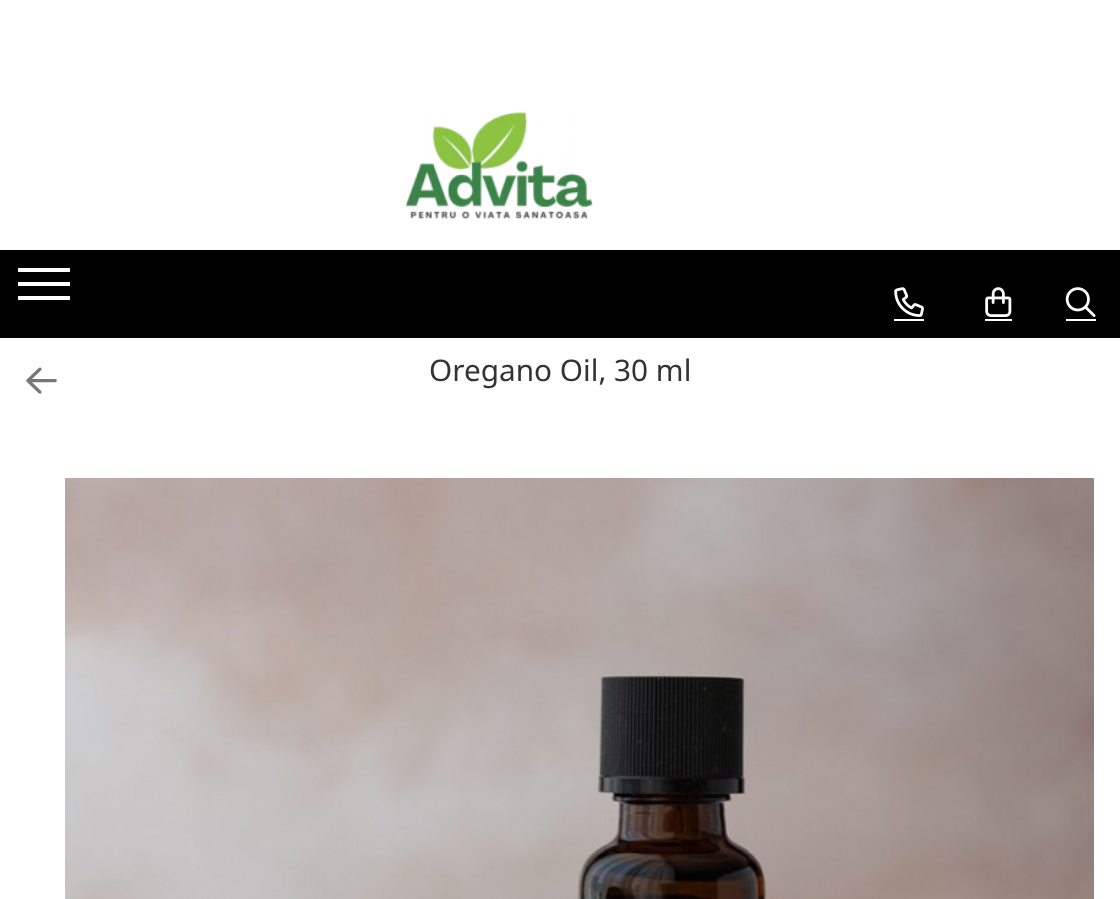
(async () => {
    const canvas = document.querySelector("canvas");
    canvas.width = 1120;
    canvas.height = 899;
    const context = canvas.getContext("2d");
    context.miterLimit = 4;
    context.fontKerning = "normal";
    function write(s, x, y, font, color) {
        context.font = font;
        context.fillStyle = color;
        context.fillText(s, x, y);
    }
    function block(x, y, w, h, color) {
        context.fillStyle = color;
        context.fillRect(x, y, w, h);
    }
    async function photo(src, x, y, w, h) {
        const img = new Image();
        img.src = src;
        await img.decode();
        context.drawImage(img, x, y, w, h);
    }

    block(0, 0, 1120, 899, "rgb(255, 255, 255)");
    await photo("media/1.png", 405, 111, 189, 109);
    block(0, 250, 1120, 88, "rgb(0, 0, 0)");
    block(18, 282, 52, 4, "rgb(255, 255, 255)");
    block(18, 268, 52, 4, "rgb(255, 255, 255)");
    block(18, 296, 52, 4, "rgb(255, 255, 255)");
    await photo("media/2.png", 894, 287, 30, 30);
    block(894, 319, 30, 2, "rgb(255, 255, 255)");
    await photo("media/3.png", 985, 287, 27, 30);
    block(985, 319, 27, 2, "rgb(255, 255, 255)");
    await photo("media/4.png", 1065, 287, 31, 30);
    block(1066, 319, 30, 2, "rgb(255, 255, 255)");
    await photo("media/5.png", 26, 367, 31, 27);
    write("Oregano Oil, 30 ml", 429, 381, "29.75px Noto Sans", "rgb(51, 51, 51)");
    await photo("media/6.png", 65, 478, 1029, 421);
})();
